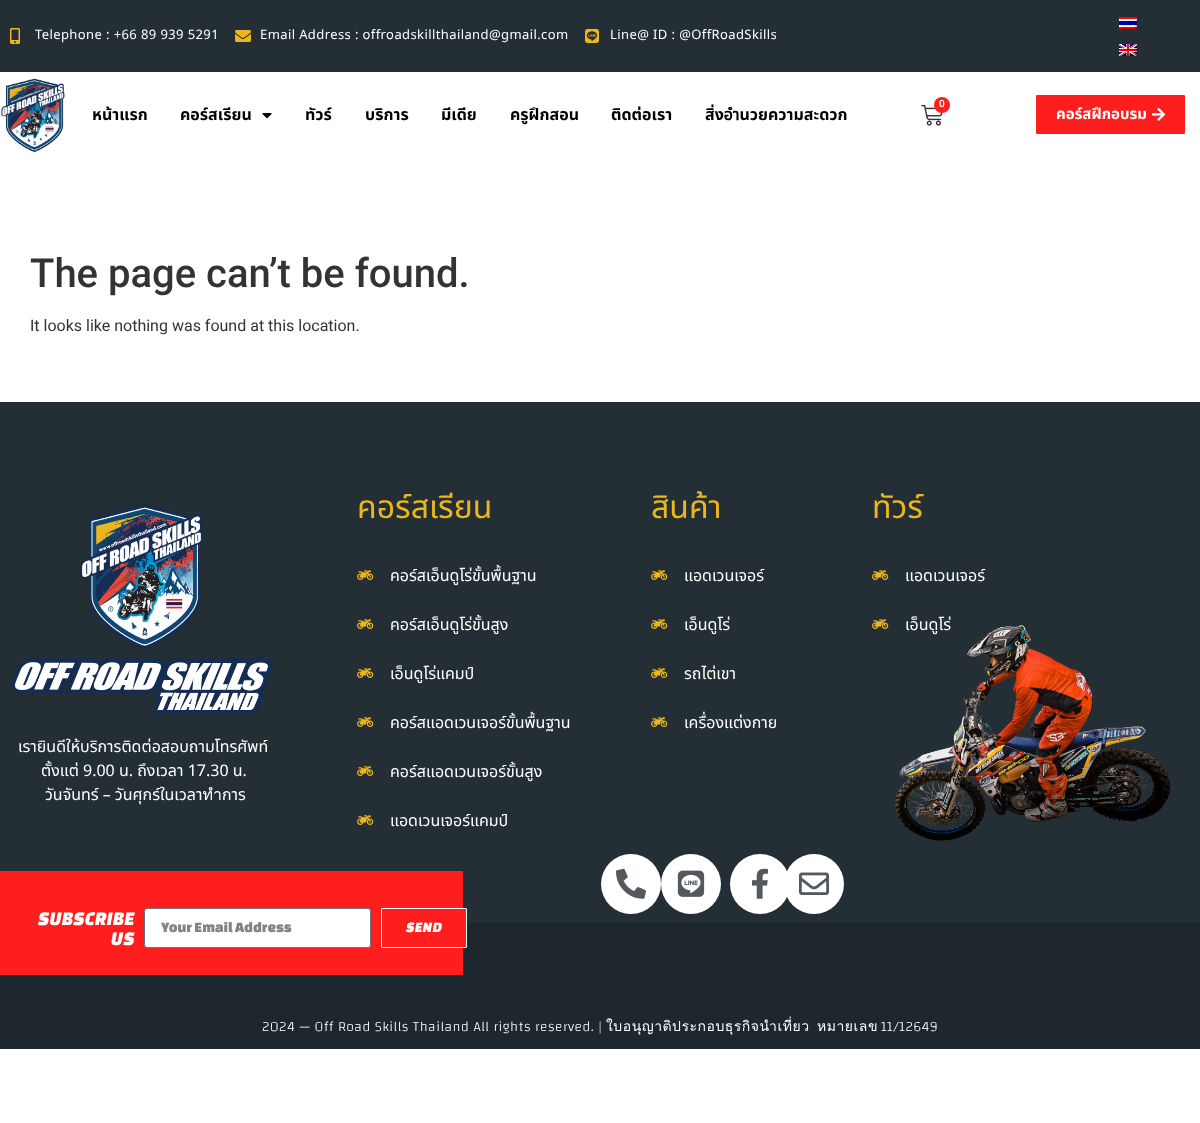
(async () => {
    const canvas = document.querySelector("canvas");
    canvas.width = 1200;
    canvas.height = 1123;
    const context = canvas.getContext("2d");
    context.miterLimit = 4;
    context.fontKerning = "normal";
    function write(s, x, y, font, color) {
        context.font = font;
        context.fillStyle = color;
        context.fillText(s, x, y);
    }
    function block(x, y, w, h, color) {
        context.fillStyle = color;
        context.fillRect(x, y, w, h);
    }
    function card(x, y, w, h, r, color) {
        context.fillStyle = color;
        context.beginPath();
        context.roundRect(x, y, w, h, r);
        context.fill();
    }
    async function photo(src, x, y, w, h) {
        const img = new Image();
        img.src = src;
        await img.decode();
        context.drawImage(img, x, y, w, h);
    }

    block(0, 0, 1200, 1123, "rgb(255, 255, 255)");
    block(0, 0, 1200, 72, "rgb(35, 46, 53)");
    await photo("media/1.png", 10, 28, 10, 16);
    context.letterSpacing = "0.4px";
    write("Telephone : +66 89 939 5291", 35, 39, "13px Noto Sans Thai", "rgb(255, 255, 255)");
    await photo("media/2.png", 235, 30, 16, 12);
    write("Email Address : offroadskillthailand@gmail.com", 260, 39, "13px Noto Sans Thai", "rgb(255, 255, 255)");
    await photo("media/3.png", 585, 29, 14, 14);
    write("Line@ ID : @OffRoadSkills", 610, 39, "13px Noto Sans Thai", "rgb(255, 255, 255)");
    await photo("media/4.png", 1119, 17, 18, 12);
    await photo("media/5.png", 1119, 44, 18, 12);
    await photo("media/6.png", 1, 78, 64, 75);
    context.letterSpacing = "0px";
    write("หน้าแรก", 92, 120, "bold 16px Noto Sans Thai", "rgb(0, 0, 0)");
    write("คอร์สเรียน", 180, 120, "bold 16px Noto Sans Thai", "rgb(0, 0, 0)");
    await photo("media/7.png", 262, 113, 10, 6);
    write("ทัวร์", 305, 120, "bold 16px Noto Sans Thai", "rgb(0, 0, 0)");
    write("บริการ", 365, 120, "bold 16px Noto Sans Thai", "rgb(0, 0, 0)");
    write("มีเดีย", 441, 120, "bold 16px Noto Sans Thai", "rgb(0, 0, 0)");
    write("ครูฝึกสอน", 510, 120, "bold 16px Noto Sans Thai", "rgb(0, 0, 0)");
    write("ติดต่อเรา", 611, 120, "bold 16px Noto Sans Thai", "rgb(0, 0, 0)");
    write("สิ่งอำนวยความสะดวก", 705, 120, "bold 16px Noto Sans Thai", "rgb(0, 0, 0)");
    await photo("media/8.png", 921, 105, 22, 21);
    context.fillStyle = "rgb(255, 30, 30)";
    context.beginPath();
    context.arc(942, 105, 8, 0, Math.PI * 2);
    context.fill();
    write("0", 939, 107, "600 10px Noto Sans Thai", "rgb(255, 255, 255)");
    card(1036, 95, 149, 39, 1, "rgb(255, 30, 30)");
    write("คอร์สฝึกอบรม", 1056, 119, "bold 15px Noto Sans Thai", "rgb(255, 255, 255)");
    await photo("media/9.png", 1152, 108, 14, 13);
    write("The page can’t be found.", 30, 287, "500 40px Roboto", "rgb(51, 51, 51)");
    write("It looks like nothing was found at this location.", 30, 331, "16px Roboto", "rgb(51, 51, 51)");
    block(0, 402, 1200, 521, "rgb(35, 46, 53)");
    write("คอร์สเรียน", 357, 518, "32px Noto Sans Thai", "rgb(238, 182, 29)");
    await photo("media/10.png", 357, 570, 17, 10);
    write("คอร์สเอ็นดูโร่ขั้นพื้นฐาน", 390, 581, "16px Noto Sans Thai", "rgb(255, 255, 255)");
    await photo("media/10.png", 357, 619, 17, 10);
    write("คอร์สเอ็นดูโร่ขั้นสูง", 390, 630, "16px Noto Sans Thai", "rgb(255, 255, 255)");
    await photo("media/10.png", 357, 668, 17, 10);
    write("เอ็นดูโร่แคมป์", 390, 679, "16px Noto Sans Thai", "rgb(255, 255, 255)");
    await photo("media/10.png", 357, 717, 17, 10);
    write("คอร์สแอดเวนเจอร์ขั้นพื้นฐาน", 390, 728, "16px Noto Sans Thai", "rgb(255, 255, 255)");
    await photo("media/10.png", 357, 766, 17, 10);
    write("คอร์สแอดเวนเจอร์ขั้นสูง", 390, 777, "16px Noto Sans Thai", "rgb(255, 255, 255)");
    await photo("media/10.png", 357, 815, 17, 10);
    write("แอดเวนเจอร์แคมป์", 390, 826, "16px Noto Sans Thai", "rgb(255, 255, 255)");
    write("สินค้า", 651, 518, "32px Noto Sans Thai", "rgb(238, 182, 29)");
    await photo("media/10.png", 651, 570, 17, 10);
    write("แอดเวนเจอร์", 684, 581, "16px Noto Sans Thai", "rgb(255, 255, 255)");
    await photo("media/10.png", 651, 619, 17, 10);
    write("เอ็นดูโร่", 684, 630, "16px Noto Sans Thai", "rgb(255, 255, 255)");
    await photo("media/10.png", 651, 668, 17, 10);
    write("รถไต่เขา", 684, 679, "16px Noto Sans Thai", "rgb(255, 255, 255)");
    await photo("media/10.png", 651, 717, 17, 10);
    write("เครื่องแต่งกาย", 684, 728, "16px Noto Sans Thai", "rgb(255, 255, 255)");
    write("ทัวร์", 872, 518, "32px Noto Sans Thai", "rgb(238, 182, 29)");
    await photo("media/10.png", 872, 570, 17, 10);
    write("แอดเวนเจอร์", 905, 581, "16px Noto Sans Thai", "rgb(255, 255, 255)");
    await photo("media/10.png", 872, 619, 17, 10);
    write("เอ็นดูโร่", 905, 630, "16px Noto Sans Thai", "rgb(255, 255, 255)");
    await photo("media/11.png", 80, 504, 123, 145);
    await photo("media/12.png", 11, 657, 262, 57);
    write("เรายินดีให้บริการติดต่อสอบถามโทรศัพท์", 18, 752, "16px Noto Sans Thai", "rgb(255, 255, 255)");
    write("ตั้งแต่ 9.00 น. ถึงเวลา 17.30 น.", 41, 776, "16px Noto Sans Thai", "rgb(255, 255, 255)");
    write("วันจันทร์ – วันศุกร์ในเวลาทำการ", 45, 800, "16px Noto Sans Thai", "rgb(255, 255, 255)");
    block(463, 923, 737, 52, "rgb(30, 39, 45)");
    await photo("media/13.png", 894, 625, 277, 216);
    context.fillStyle = "rgb(255, 255, 255)";
    context.beginPath();
    context.arc(631, 884, 30, 0, Math.PI * 2);
    context.fill();
    await photo("media/14.png", 616, 868, 30, 31);
    context.beginPath();
    context.arc(691, 884, 30, 0, Math.PI * 2);
    context.fill();
    await photo("media/15.png", 677, 870, 28, 27);
    context.beginPath();
    context.arc(760, 884, 30, 0, Math.PI * 2);
    context.fill();
    await photo("media/16.png", 751, 868, 18, 31);
    context.beginPath();
    context.arc(814, 884, 30, 0, Math.PI * 2);
    context.fill();
    await photo("media/17.png", 799, 872, 30, 23);
    block(0, 871, 463, 104, "rgb(255, 30, 30)");
    write("SUBSCRIBE", 38, 925, "italic 20px Changa One", "rgb(255, 255, 255)");
    write("US", 111, 945, "italic 20px Changa One", "rgb(255, 255, 255)");
    context.beginPath();
    context.roundRect(144.5, 908.5, 226, 39, 2.5);
    context.fill();
    context.strokeStyle = "rgb(105, 114, 125)";
    context.stroke();
    write("Your Email Address", 161, 932, "15px Changa One", "rgb(132, 132, 132)");
    context.fillStyle = "rgb(255, 30, 30)";
    context.beginPath();
    context.roundRect(381.5, 908.5, 85, 39, 0.5);
    context.fill();
    context.strokeStyle = "rgb(255, 255, 255)";
    context.stroke();
    write("SEND", 406, 932, "italic 15px Changa One", "rgb(255, 255, 255)");
    block(0, 975, 1200, 74, "rgb(30, 39, 45)");
    context.letterSpacing = "0.5px";
    context.wordSpacing = "-0.25px";
    write("2024 — Off Road Skills Thailand All rights reserved. |", 262, 1031, "200 14px Changa", "rgb(255, 255, 255)");
    context.wordSpacing = "0px";
    write("ใบอนุญาติประกอบธุรกิจนำเที่ยว", 606, 1031, "14px Loma", "rgb(255, 255, 255)");
    write("หมายเลข", 817, 1031, "14px Loma", "rgb(255, 255, 255)");
    write("11/12649", 881, 1031, "200 14px Changa", "rgb(255, 255, 255)");
})();
